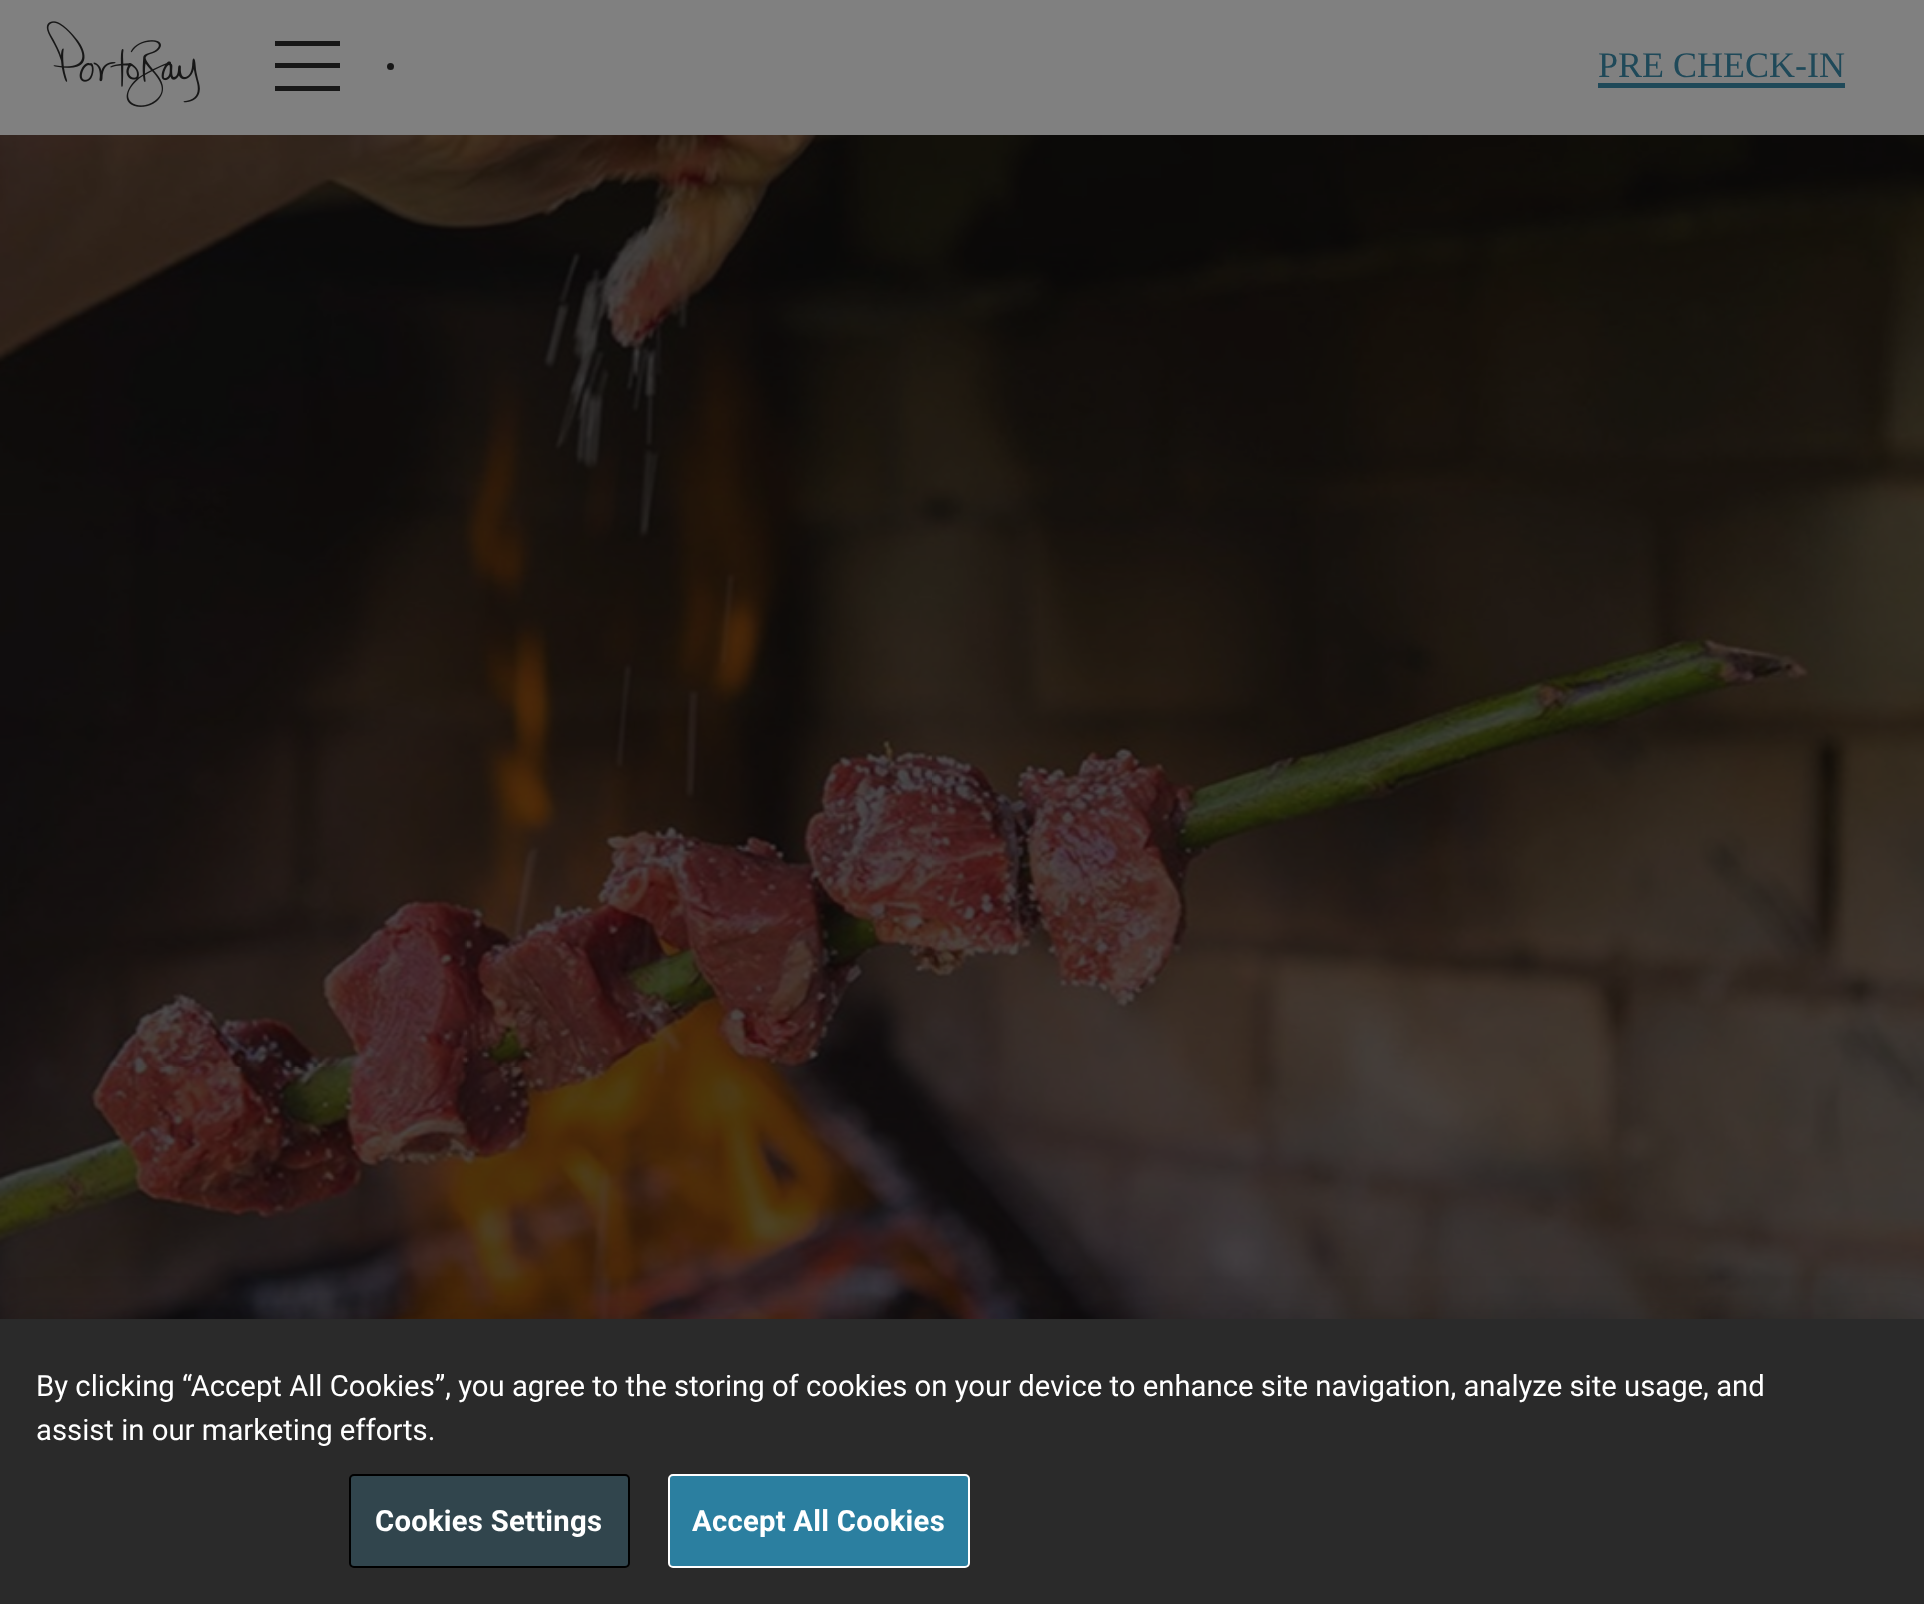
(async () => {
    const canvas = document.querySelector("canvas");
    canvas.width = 1924;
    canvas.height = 1604;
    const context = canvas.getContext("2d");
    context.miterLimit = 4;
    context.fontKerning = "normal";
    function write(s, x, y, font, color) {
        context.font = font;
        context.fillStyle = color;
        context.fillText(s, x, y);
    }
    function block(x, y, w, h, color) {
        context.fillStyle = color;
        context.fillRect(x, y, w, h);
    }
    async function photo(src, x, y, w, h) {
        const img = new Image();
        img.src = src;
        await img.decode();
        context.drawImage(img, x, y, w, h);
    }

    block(0, 0, 1924, 1604, "rgb(128, 128, 128)");
    await photo("media/1.png", 46, 21, 154, 86);
    block(275, 41, 65, 5, "rgb(23, 23, 23)");
    block(275, 63, 65, 5, "rgb(23, 23, 23)");
    block(275, 86, 65, 5, "rgb(23, 23, 23)");
    context.beginPath();
    context.arc(390.5, 66.5, 3.5, 0, Math.PI * 2);
    context.fill();
    write("PRE CHECK-IN", 1598, 77, "36px Liberation Serif", "rgb(31, 73, 89)");
    block(1598, 83, 247, 5, "rgb(31, 73, 89)");
    await photo("media/2.png", 0, 135, 1924, 1184);
    context.fillStyle = "rgba(0, 0, 0, 0.2)";
    context.filter = "blur(20px)";
    context.beginPath();
    context.rect(0, 1319, 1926, 285);
    context.fill();
    context.filter = "none";
    block(0, 1319, 1924, 285, "rgb(42, 42, 42)");
    write("By clicking “Accept All Cookies”, you agree to the storing of cookies on your device to enhance site navigation, analyze site usage, and", 36, 1396, "29.27px Roboto", "rgb(255, 255, 255)");
    write("assist in our marketing efforts.", 36, 1440, "29.27px Roboto", "rgb(255, 255, 255)");
    context.fillStyle = "rgb(49, 69, 77)";
    context.beginPath();
    context.roundRect(350, 1475, 279, 92, 4);
    context.fill();
    context.strokeStyle = "rgb(0, 0, 0)";
    context.lineWidth = 2;
    context.stroke();
    context.letterSpacing = "0.25px";
    write("Cookies Settings", 375, 1531, "bold 29.27px Roboto", "rgb(255, 255, 255)");
    context.fillStyle = "rgb(43, 127, 160)";
    context.beginPath();
    context.roundRect(669, 1475, 300, 92, 4);
    context.fill();
    context.strokeStyle = "rgb(255, 255, 255)";
    context.stroke();
    write("Accept All Cookies", 692, 1531, "bold 29.27px Roboto", "rgb(255, 255, 255)");
})();
